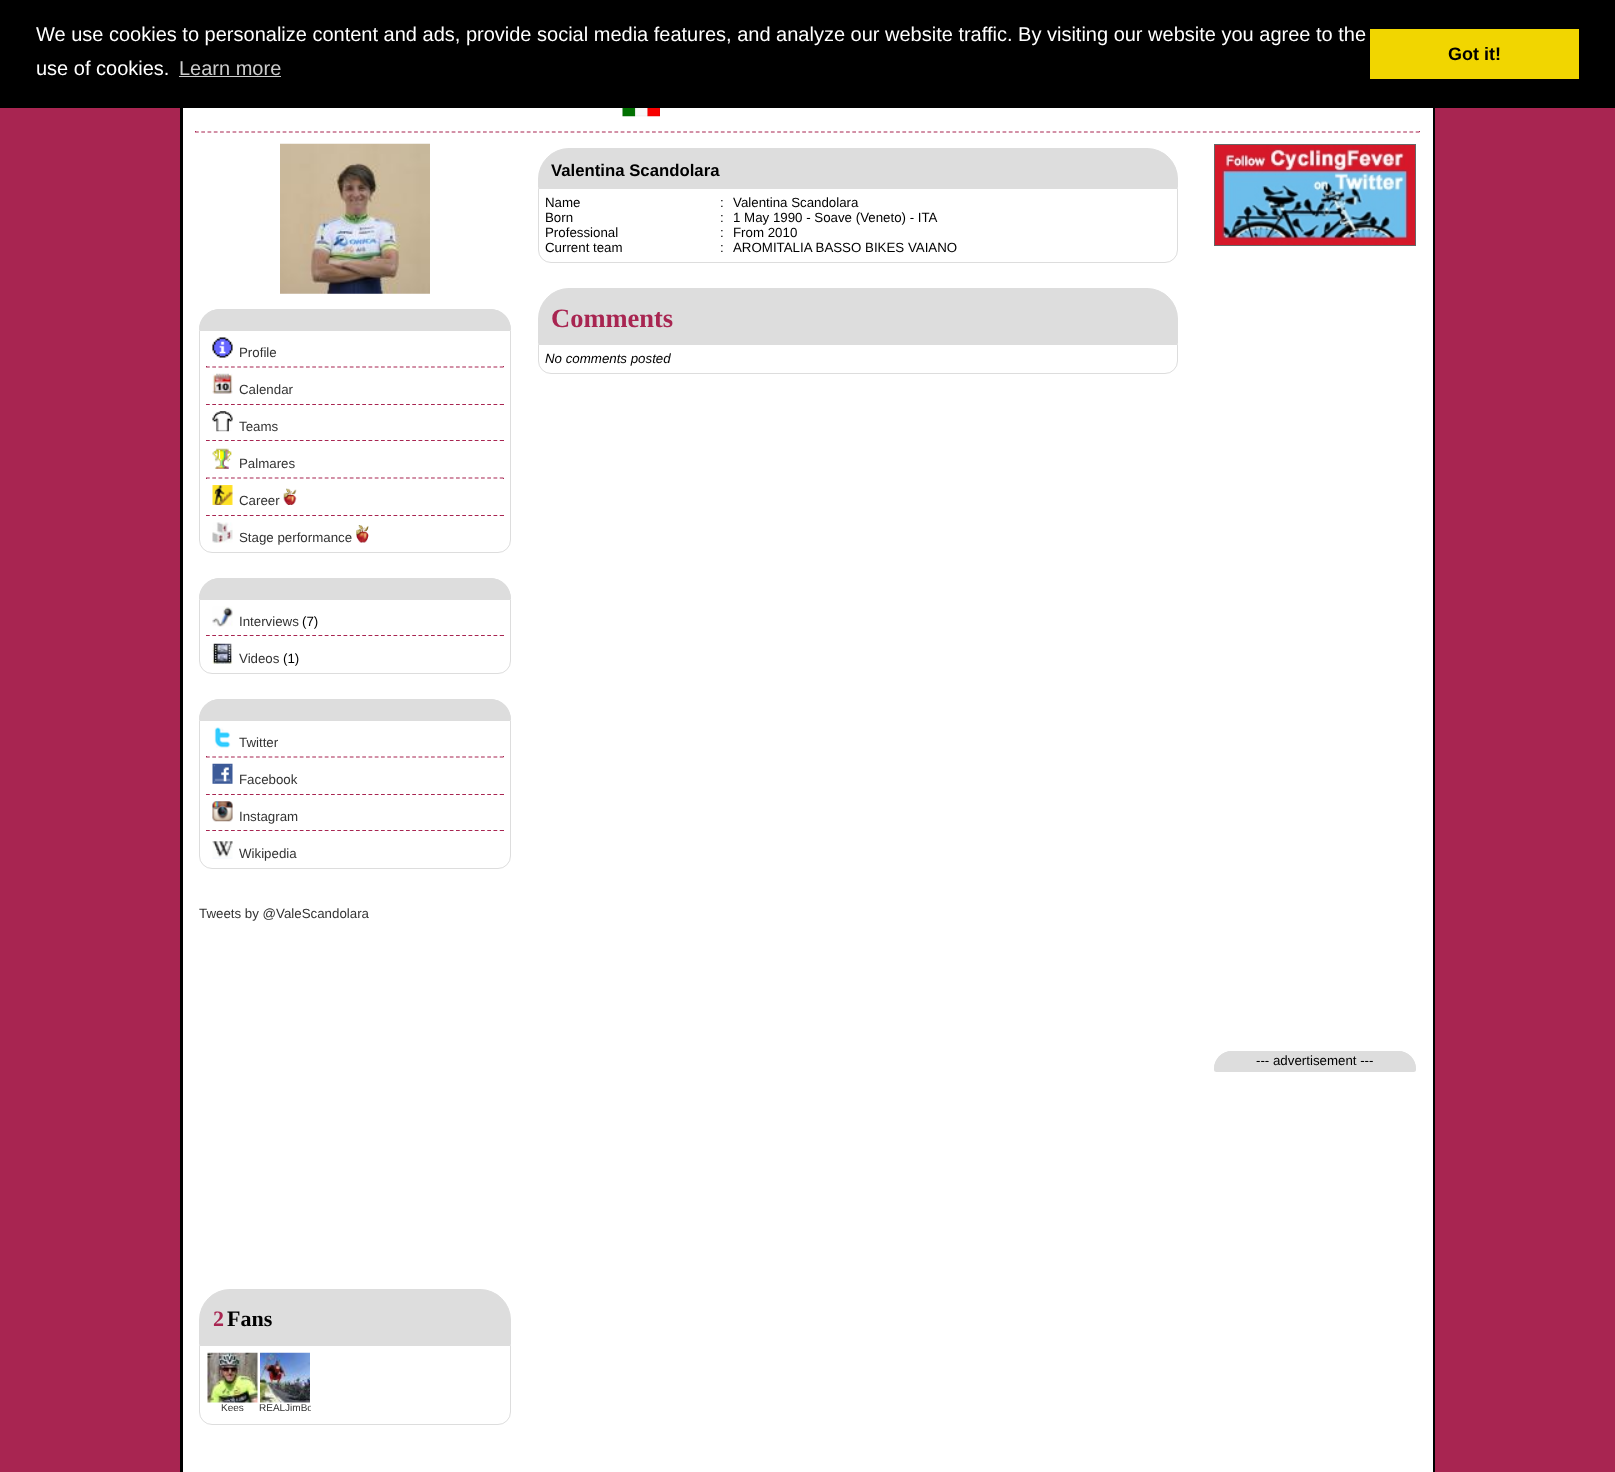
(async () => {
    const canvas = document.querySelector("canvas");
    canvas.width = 1615;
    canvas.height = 1472;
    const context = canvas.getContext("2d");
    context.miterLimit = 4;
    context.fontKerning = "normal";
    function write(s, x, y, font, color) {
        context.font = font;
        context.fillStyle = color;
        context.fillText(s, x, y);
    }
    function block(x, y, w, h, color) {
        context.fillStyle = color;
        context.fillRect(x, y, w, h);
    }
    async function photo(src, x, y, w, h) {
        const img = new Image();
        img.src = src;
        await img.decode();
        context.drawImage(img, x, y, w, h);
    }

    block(0, 0, 1615, 1472, "rgb(168, 37, 81)");
    context.strokeStyle = "rgb(0, 0, 0)";
    context.lineWidth = 3;
    context.strokeRect(181.5, -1.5, 1252, 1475);
    block(0, 0, 1615, 108, "rgb(0, 0, 0)");
    write("We use cookies to personalize content and ads, provide social media features, and analyze our website traffic. By visiting our website you agree to the", 36, 41, "20px Liberation Sans", "rgb(255, 255, 255)");
    write("use of cookies.", 36, 75, "20px Liberation Sans", "rgb(255, 255, 255)");
    write("Learn more", 179, 75, "20px Liberation Sans", "rgb(204, 204, 204)");
    block(179, 76, 102, 1, "rgb(204, 204, 204)");
    block(1370, 29, 209, 50, "rgb(241, 214, 0)");
    write("Got it!", 1448, 60, "bold 18px Liberation Sans", "rgb(0, 0, 0)");
    block(183, 108, 1250, 1364, "rgb(255, 255, 255)");
    await photo("media/1.png", 622, 108, 38, 9);
    context.beginPath();
    context.moveTo(195, 132);
    context.lineTo(1420, 132);
    context.strokeStyle = "rgb(168, 37, 81)";
    context.lineWidth = 1.2;
    context.setLineDash([3.75, 2.51]);
    context.stroke();
    block(1419, 131, 1, 1, "rgb(168, 37, 81)");
    block(195, 131, 1, 1, "rgb(168, 37, 81)");
    context.fillStyle = "rgb(221, 221, 221)";
    context.beginPath();
    context.roundRect(538.5, 148.5, 639, 39, [30.5, 30.5, 0, 0]);
    context.fill();
    context.strokeStyle = "rgb(221, 221, 221)";
    context.lineWidth = 1;
    context.setLineDash([]);
    context.stroke();
    write("Valentina Scandolara", 551, 176, "bold 16.75px Liberation Sans", "rgb(0, 0, 0)");
    context.beginPath();
    context.roundRect(538.5, 188.5, 639, 74, [0, 0, 12.5, 12.5]);
    context.stroke();
    write("Name", 545, 207, "13.3px Liberation Sans", "rgb(0, 0, 0)");
    write(":", 720, 207, "13.3px Liberation Sans", "rgb(0, 0, 0)");
    write("Valentina Scandolara", 733, 207, "13.3px Liberation Sans", "rgb(0, 0, 0)");
    write("Born", 545, 222, "13.3px Liberation Sans", "rgb(0, 0, 0)");
    write(":", 720, 222, "13.3px Liberation Sans", "rgb(0, 0, 0)");
    write("1 May 1990 - Soave (Veneto) - ITA", 733, 222, "13.3px Liberation Sans", "rgb(0, 0, 0)");
    write("Professional", 545, 237, "13.3px Liberation Sans", "rgb(0, 0, 0)");
    write(":", 720, 237, "13.3px Liberation Sans", "rgb(0, 0, 0)");
    write("From 2010", 733, 237, "13.3px Liberation Sans", "rgb(0, 0, 0)");
    write("Current team", 545, 252, "13.3px Liberation Sans", "rgb(0, 0, 0)");
    write(":", 720, 252, "13.3px Liberation Sans", "rgb(0, 0, 0)");
    write("AROMITALIA BASSO BIKES VAIANO", 733, 252, "13.3px Liberation Sans", "rgb(0, 0, 0)");
    context.fillStyle = "rgb(221, 221, 221)";
    context.beginPath();
    context.roundRect(538.5, 288.5, 639, 55, [30.5, 30.5, 0, 0]);
    context.fill();
    context.stroke();
    write("Comments", 551, 327, "bold 26.5px Liberation Serif", "rgb(168, 37, 81)");
    context.beginPath();
    context.roundRect(538.5, 344.5, 639, 29, [0, 0, 12.5, 12.5]);
    context.stroke();
    write("No comments posted", 545, 363, "italic 13.3px Liberation Sans", "rgb(0, 0, 0)");
    await photo("media/2.png", 280, 143, 150, 151);
    context.fillStyle = "rgb(221, 221, 221)";
    context.beginPath();
    context.roundRect(199, 309, 312, 21, [21, 21, 0, 0]);
    context.fill();
    context.beginPath();
    context.moveTo(220, 309);
    context.bezierCurveTo(208, 309, 199, 318, 199, 330);
    context.lineTo(511, 330);
    context.bezierCurveTo(511, 318, 502, 309, 490, 309);
    context.closePath();
    context.moveTo(510, 329);
    context.lineTo(510, 330);
    context.closePath();
    context.moveTo(220, 310);
    context.lineTo(490, 310);
    context.bezierCurveTo(501, 310, 509, 318, 510, 329);
    context.lineTo(200, 329);
    context.bezierCurveTo(201, 318, 209, 310, 220, 310);
    context.closePath();
    context.moveTo(200, 329);
    context.lineTo(200, 330);
    context.closePath();
    context.fill("evenodd");
    context.beginPath();
    context.roundRect(199.5, 330.5, 311, 222, [0, 0, 12.5, 12.5]);
    context.stroke();
    await photo("media/3.png", 212, 337, 21, 21);
    write("Profile", 239, 357, "13.3px Liberation Sans", "rgb(51, 51, 51)");
    context.beginPath();
    context.moveTo(206, 367);
    context.lineTo(504, 367);
    context.strokeStyle = "rgb(168, 37, 81)";
    context.lineWidth = 1.2;
    context.setLineDash([3.75, 2.5]);
    context.stroke();
    block(503, 366, 1, 1, "rgb(168, 37, 81)");
    block(206, 366, 1, 1, "rgb(168, 37, 81)");
    await photo("media/4.png", 212, 373, 21, 21);
    write("Calendar", 239, 394, "13.3px Liberation Sans", "rgb(51, 51, 51)");
    context.beginPath();
    context.moveTo(206, 404.5);
    context.lineTo(504, 404.5);
    context.stroke();
    block(503, 404, 1, 1, "rgb(168, 37, 81)");
    await photo("media/5.png", 212, 411, 21, 21);
    write("Teams", 239, 431, "13.3px Liberation Sans", "rgb(51, 51, 51)");
    context.beginPath();
    context.moveTo(206, 440.5);
    context.lineTo(504, 440.5);
    context.stroke();
    block(503, 440, 1, 1, "rgb(168, 37, 81)");
    await photo("media/6.png", 212, 448, 20, 21);
    write("Palmares", 239, 468, "13.3px Liberation Sans", "rgb(51, 51, 51)");
    context.beginPath();
    context.moveTo(206, 478);
    context.lineTo(504, 478);
    context.stroke();
    block(503, 478, 1, 1, "rgb(168, 37, 81)");
    block(206, 478, 1, 1, "rgb(168, 37, 81)");
    await photo("media/7.png", 212, 485, 21, 20);
    write("Career", 239, 505, "13.3px Liberation Sans", "rgb(51, 51, 51)");
    await photo("media/8.png", 283, 488, 14, 17);
    context.beginPath();
    context.moveTo(206, 515.5);
    context.lineTo(504, 515.5);
    context.stroke();
    block(503, 515, 1, 1, "rgb(168, 37, 81)");
    await photo("media/9.png", 212, 522, 21, 21);
    write("Stage performance", 239, 542, "13.3px Liberation Sans", "rgb(51, 51, 51)");
    await photo("media/10.png", 356, 525, 13, 18);
    context.fillStyle = "rgb(221, 221, 221)";
    context.beginPath();
    context.roundRect(199, 578, 312, 21, [21, 21, 0, 0]);
    context.fill();
    context.beginPath();
    context.moveTo(220, 578);
    context.bezierCurveTo(208, 578, 199, 587, 199, 599);
    context.lineTo(511, 599);
    context.bezierCurveTo(511, 587, 502, 578, 490, 578);
    context.closePath();
    context.moveTo(510, 598);
    context.lineTo(510, 599);
    context.closePath();
    context.moveTo(220, 579);
    context.lineTo(490, 579);
    context.bezierCurveTo(501, 579, 509, 587, 510, 598);
    context.lineTo(200, 598);
    context.bezierCurveTo(201, 587, 209, 579, 220, 579);
    context.closePath();
    context.moveTo(200, 598);
    context.lineTo(200, 599);
    context.closePath();
    context.fill("evenodd");
    context.beginPath();
    context.roundRect(199.5, 599.5, 311, 74, [0, 0, 12.5, 12.5]);
    context.strokeStyle = "rgb(221, 221, 221)";
    context.lineWidth = 1;
    context.setLineDash([]);
    context.stroke();
    await photo("media/11.png", 212, 606, 21, 21);
    write("Interviews", 239, 626, "13.3px Liberation Sans", "rgb(51, 51, 51)");
    write("(7)", 302, 626, "13.3px Liberation Sans", "rgb(0, 0, 0)");
    context.beginPath();
    context.moveTo(206, 635.5);
    context.lineTo(504, 635.5);
    context.strokeStyle = "rgb(168, 37, 81)";
    context.lineWidth = 1.2;
    context.setLineDash([3.75, 2.5]);
    context.stroke();
    block(503, 635, 1, 1, "rgb(168, 37, 81)");
    await photo("media/12.png", 212, 643, 21, 21);
    write("Videos", 239, 663, "13.3px Liberation Sans", "rgb(51, 51, 51)");
    write("(1)", 283, 663, "13.3px Liberation Sans", "rgb(0, 0, 0)");
    context.fillStyle = "rgb(221, 221, 221)";
    context.beginPath();
    context.roundRect(199, 699, 312, 21, [21, 21, 0, 0]);
    context.fill();
    context.beginPath();
    context.moveTo(220, 699);
    context.bezierCurveTo(208, 699, 199, 708, 199, 720);
    context.lineTo(511, 720);
    context.bezierCurveTo(511, 708, 502, 699, 490, 699);
    context.closePath();
    context.moveTo(510, 719);
    context.lineTo(510, 720);
    context.closePath();
    context.moveTo(220, 700);
    context.lineTo(490, 700);
    context.bezierCurveTo(501, 700, 509, 708, 510, 719);
    context.lineTo(200, 719);
    context.bezierCurveTo(201, 708, 209, 700, 220, 700);
    context.closePath();
    context.moveTo(200, 719);
    context.lineTo(200, 720);
    context.closePath();
    context.fill("evenodd");
    context.beginPath();
    context.roundRect(199.5, 720.5, 311, 148, [0, 0, 12.5, 12.5]);
    context.strokeStyle = "rgb(221, 221, 221)";
    context.lineWidth = 1;
    context.setLineDash([]);
    context.stroke();
    await photo("media/13.png", 214, 727, 17, 21);
    write("Twitter", 239, 747, "13.3px Liberation Sans", "rgb(51, 51, 51)");
    context.beginPath();
    context.moveTo(206, 757);
    context.lineTo(504, 757);
    context.strokeStyle = "rgb(168, 37, 81)";
    context.lineWidth = 1.2;
    context.setLineDash([3.75, 2.5]);
    context.stroke();
    block(503, 756, 1, 1, "rgb(168, 37, 81)");
    block(206, 756, 1, 1, "rgb(168, 37, 81)");
    await photo("media/14.png", 212, 763, 21, 21);
    write("Facebook", 239, 784, "13.3px Liberation Sans", "rgb(51, 51, 51)");
    context.beginPath();
    context.moveTo(206, 794.5);
    context.lineTo(504, 794.5);
    context.stroke();
    block(503, 794, 1, 1, "rgb(168, 37, 81)");
    await photo("media/15.png", 212, 801, 21, 21);
    write("Instagram", 239, 821, "13.3px Liberation Sans", "rgb(51, 51, 51)");
    context.beginPath();
    context.moveTo(206, 830.5);
    context.lineTo(504, 830.5);
    context.stroke();
    block(503, 830, 1, 1, "rgb(168, 37, 81)");
    await photo("media/16.png", 212, 841, 21, 18);
    write("Wikipedia", 239, 858, "13.3px Liberation Sans", "rgb(51, 51, 51)");
    write("Tweets by @ValeScandolara", 199, 918, "13.3px Liberation Sans", "rgb(51, 51, 51)");
    context.fillStyle = "rgb(221, 221, 221)";
    context.beginPath();
    context.roundRect(199.5, 1289.5, 311, 55, [30.5, 30.5, 0, 0]);
    context.fill();
    context.strokeStyle = "rgb(221, 221, 221)";
    context.lineWidth = 1;
    context.setLineDash([]);
    context.stroke();
    write("2", 213, 1326, "bold 22px Liberation Serif", "rgb(168, 37, 81)");
    write("Fans", 227, 1326, "bold 22px Liberation Serif", "rgb(0, 0, 0)");
    context.beginPath();
    context.roundRect(199.5, 1345.5, 311, 79, [0, 0, 12.5, 12.5]);
    context.stroke();
    await photo("media/17.png", 207, 1352, 51, 51);
    write("Kees", 221, 1411, "10px Liberation Sans", "rgb(51, 51, 51)");
    await photo("media/18.png", 260, 1352, 50, 51);
    context.save();
    context.beginPath();
    context.rect(259, 1353, 52, 65);
    context.clip();
    write("REALJimBo", 259, 1411, "10px Liberation Sans", "rgb(51, 51, 51)");
    context.restore();
    context.strokeStyle = "rgb(102, 102, 102)";
    context.strokeRect(1214.5, 144.5, 201, 101);
    await photo("media/19.png", 1215, 145, 200, 100);
    context.fillStyle = "rgb(221, 221, 221)";
    context.beginPath();
    context.roundRect(1214, 1051, 202, 18, [18, 18, 0, 0]);
    context.fill();
    context.beginPath();
    context.moveTo(1232, 1051);
    context.bezierCurveTo(1222, 1051, 1214, 1059, 1214, 1069);
    context.lineTo(1416, 1069);
    context.bezierCurveTo(1416, 1059, 1408, 1051, 1398, 1051);
    context.closePath();
    context.moveTo(1415, 1068);
    context.lineTo(1415, 1069);
    context.closePath();
    context.moveTo(1232, 1052);
    context.lineTo(1398, 1052);
    context.bezierCurveTo(1407, 1052, 1414, 1059, 1415, 1068);
    context.lineTo(1215, 1068);
    context.bezierCurveTo(1216, 1059, 1223, 1052, 1232, 1052);
    context.closePath();
    context.moveTo(1215, 1068);
    context.lineTo(1215, 1069);
    context.closePath();
    context.fill("evenodd");
    write("--- advertisement ---", 1256, 1065, "13.3px Liberation Sans", "rgb(0, 0, 0)");
    context.fillStyle = "rgb(221, 221, 221)";
    context.beginPath();
    context.roundRect(1214, 1069, 202, 3, [0, 0, 2.5, 2.5]);
    context.fill();
})();
